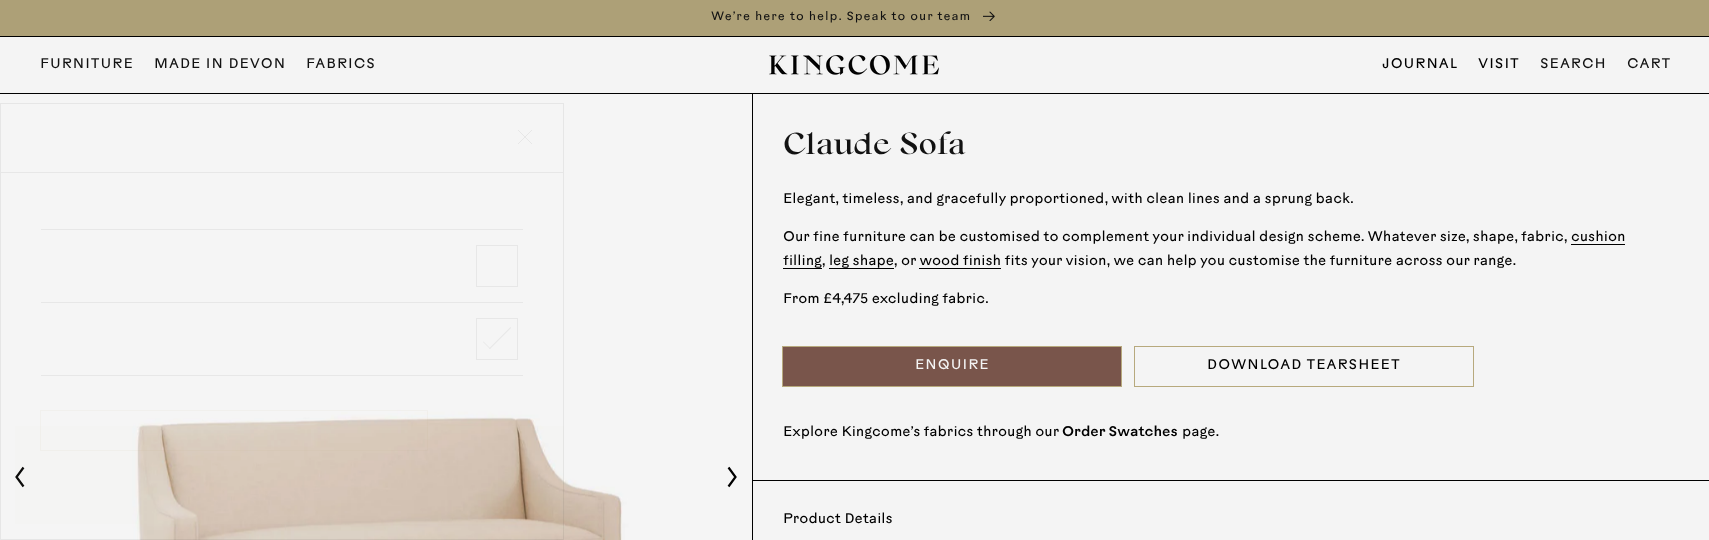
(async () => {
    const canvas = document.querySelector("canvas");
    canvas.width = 1709;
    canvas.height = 540;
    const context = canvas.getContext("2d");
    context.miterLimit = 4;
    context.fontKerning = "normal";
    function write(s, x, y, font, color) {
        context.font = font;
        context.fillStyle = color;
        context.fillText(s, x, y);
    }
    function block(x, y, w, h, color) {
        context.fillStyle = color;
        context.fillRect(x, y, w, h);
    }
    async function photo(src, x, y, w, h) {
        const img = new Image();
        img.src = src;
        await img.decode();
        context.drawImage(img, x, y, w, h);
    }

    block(0, 0, 1709, 540, "rgb(244, 244, 244)");
    block(0, 36, 1709, 1, "rgb(0, 0, 0)");
    block(0, 0, 1709, 36, "rgb(173, 160, 119)");
    context.letterSpacing = "1px";
    write("We’re here to help. Speak to our team", 711, 20, "12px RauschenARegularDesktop", "rgb(18, 18, 18)");
    await photo("media/1.png", 983, 11, 12, 10);
    block(0, 93, 1709, 1, "rgb(0, 0, 0)");
    write("FURNITURE", 40, 68, "14px RauschenARegularDesktop", "rgb(18, 18, 18)");
    write("MADE IN DEVON", 154, 68, "14px RauschenARegularDesktop", "rgb(18, 18, 18)");
    write("FABRICS", 306, 68, "14px RauschenARegularDesktop", "rgb(18, 18, 18)");
    await photo("media/2.png", 769, 55, 170, 20);
    write("JOURNAL", 1382, 68, "14px RauschenARegularDesktop", "rgb(0, 0, 0)");
    write("VISIT", 1478, 68, "14px RauschenARegularDesktop", "rgb(0, 0, 0)");
    write("SEARCH", 1540, 68, "14px RauschenARegularDesktop", "rgb(18, 18, 18)");
    write("CART", 1627, 68, "14px RauschenARegularDesktop", "rgb(18, 18, 18)");
    await photo("media/3.png", 0, 94, 752, 446);
    context.beginPath();
    context.moveTo(23.5, 486.5);
    context.lineTo(16.5, 477);
    context.lineTo(23.5, 467.5);
    context.strokeStyle = "rgb(0, 0, 0)";
    context.lineWidth = 2.2;
    context.stroke();
    block(15, 426, 549, 98, "rgba(232, 228, 217, 0.05)");
    context.strokeStyle = "rgba(0, 0, 0, 0.06)";
    context.lineWidth = 1;
    context.strokeRect(0.5, 103.5, 563, 436);
    context.beginPath();
    context.moveTo(518, 130);
    context.lineTo(532, 144);
    context.moveTo(532, 130);
    context.lineTo(518, 144);
    context.strokeStyle = "rgb(231, 231, 231)";
    context.stroke();
    block(1, 172, 562, 1, "rgb(231, 231, 231)");
    block(41, 229, 482, 1, "rgb(231, 231, 231)");
    block(41, 302, 482, 1, "rgb(231, 231, 231)");
    context.strokeRect(476.5, 245.5, 41, 41);
    block(41, 375, 482, 1, "rgb(231, 231, 231)");
    context.strokeRect(476.5, 318.5, 41, 41);
    context.beginPath();
    context.moveTo(510.5, 327);
    context.lineTo(511, 328);
    context.lineTo(490, 349);
    context.lineTo(489, 348.5);
    context.closePath();
    context.fill();
    context.beginPath();
    context.moveTo(483.5, 341.5);
    context.lineTo(490.5, 348.5);
    context.lineTo(490, 349);
    context.lineTo(483, 342);
    context.closePath();
    context.fill();
    context.strokeStyle = "rgba(183, 169, 125, 0.06)";
    context.strokeRect(40.5, 410.5, 387, 40);
    context.beginPath();
    context.moveTo(728.5, 467.5);
    context.lineTo(735.5, 477);
    context.lineTo(728.5, 486.5);
    context.strokeStyle = "rgb(0, 0, 0)";
    context.lineWidth = 2.2;
    context.stroke();
    block(752, 94, 1, 446, "rgb(0, 0, 0)");
    context.letterSpacing = "0.6px";
    write("Claude Sofa", 783, 154, "600 30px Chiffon", "rgb(18, 18, 18)");
    context.letterSpacing = "0px";
    write("Elegant, timeless, and gracefully proportioned, with clean lines and a sprung back.", 783, 203, "14px RauschenARegularDesktop", "rgb(0, 0, 0)");
    write("Our", 783, 241, "14px RauschenARegularDesktop", "rgb(0, 0, 0)");
    write("fine furniture can be customised to complement your individual design scheme. Whatever size, shape, fabric, cushion", 813, 241, "14px RauschenARegularDesktop", "rgb(0, 0, 0)");
    write("filling, leg shape, or wood finish fits your vision, we can help you customise the furniture across our range.", 783, 265, "14px RauschenARegularDesktop", "rgb(0, 0, 0)");
    block(1571, 244, 54, 1, "rgb(0, 0, 0)");
    block(783, 268, 39, 1, "rgb(0, 0, 0)");
    block(829, 268, 65, 1, "rgb(0, 0, 0)");
    block(919, 268, 82, 1, "rgb(0, 0, 0)");
    write("From £4,475 excluding fabric.", 783, 303, "14px RauschenARegularDesktop", "rgb(0, 0, 0)");
    context.strokeStyle = "rgb(183, 169, 125)";
    context.lineWidth = 1;
    context.strokeRect(782.5, 346.5, 339, 40);
    block(783, 347, 338, 39, "rgb(121, 85, 75)");
    context.letterSpacing = "1px";
    write("ENQUIRE", 915, 369, "14px RauschenARegularDesktop", "rgb(244, 244, 244)");
    context.strokeRect(1134.5, 346.5, 339, 40);
    write("DOWNLOAD TEARSHEET", 1207, 369, "14px RauschenARegularDesktop", "rgb(0, 0, 0)");
    context.letterSpacing = "0px";
    write("Explore Kingcome’s fabrics through our", 783, 436, "14px RauschenARegularDesktop", "rgb(0, 0, 0)");
    write("Order Swatches", 1062, 436, "500 14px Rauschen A", "rgb(0, 0, 0)");
    write("page.", 1182, 436, "14px RauschenARegularDesktop", "rgb(0, 0, 0)");
    block(753, 480, 956, 1, "rgb(0, 0, 0)");
    write("Product Details", 783, 523, "14px RauschenARegularDesktop", "rgb(0, 0, 0)");
})();
